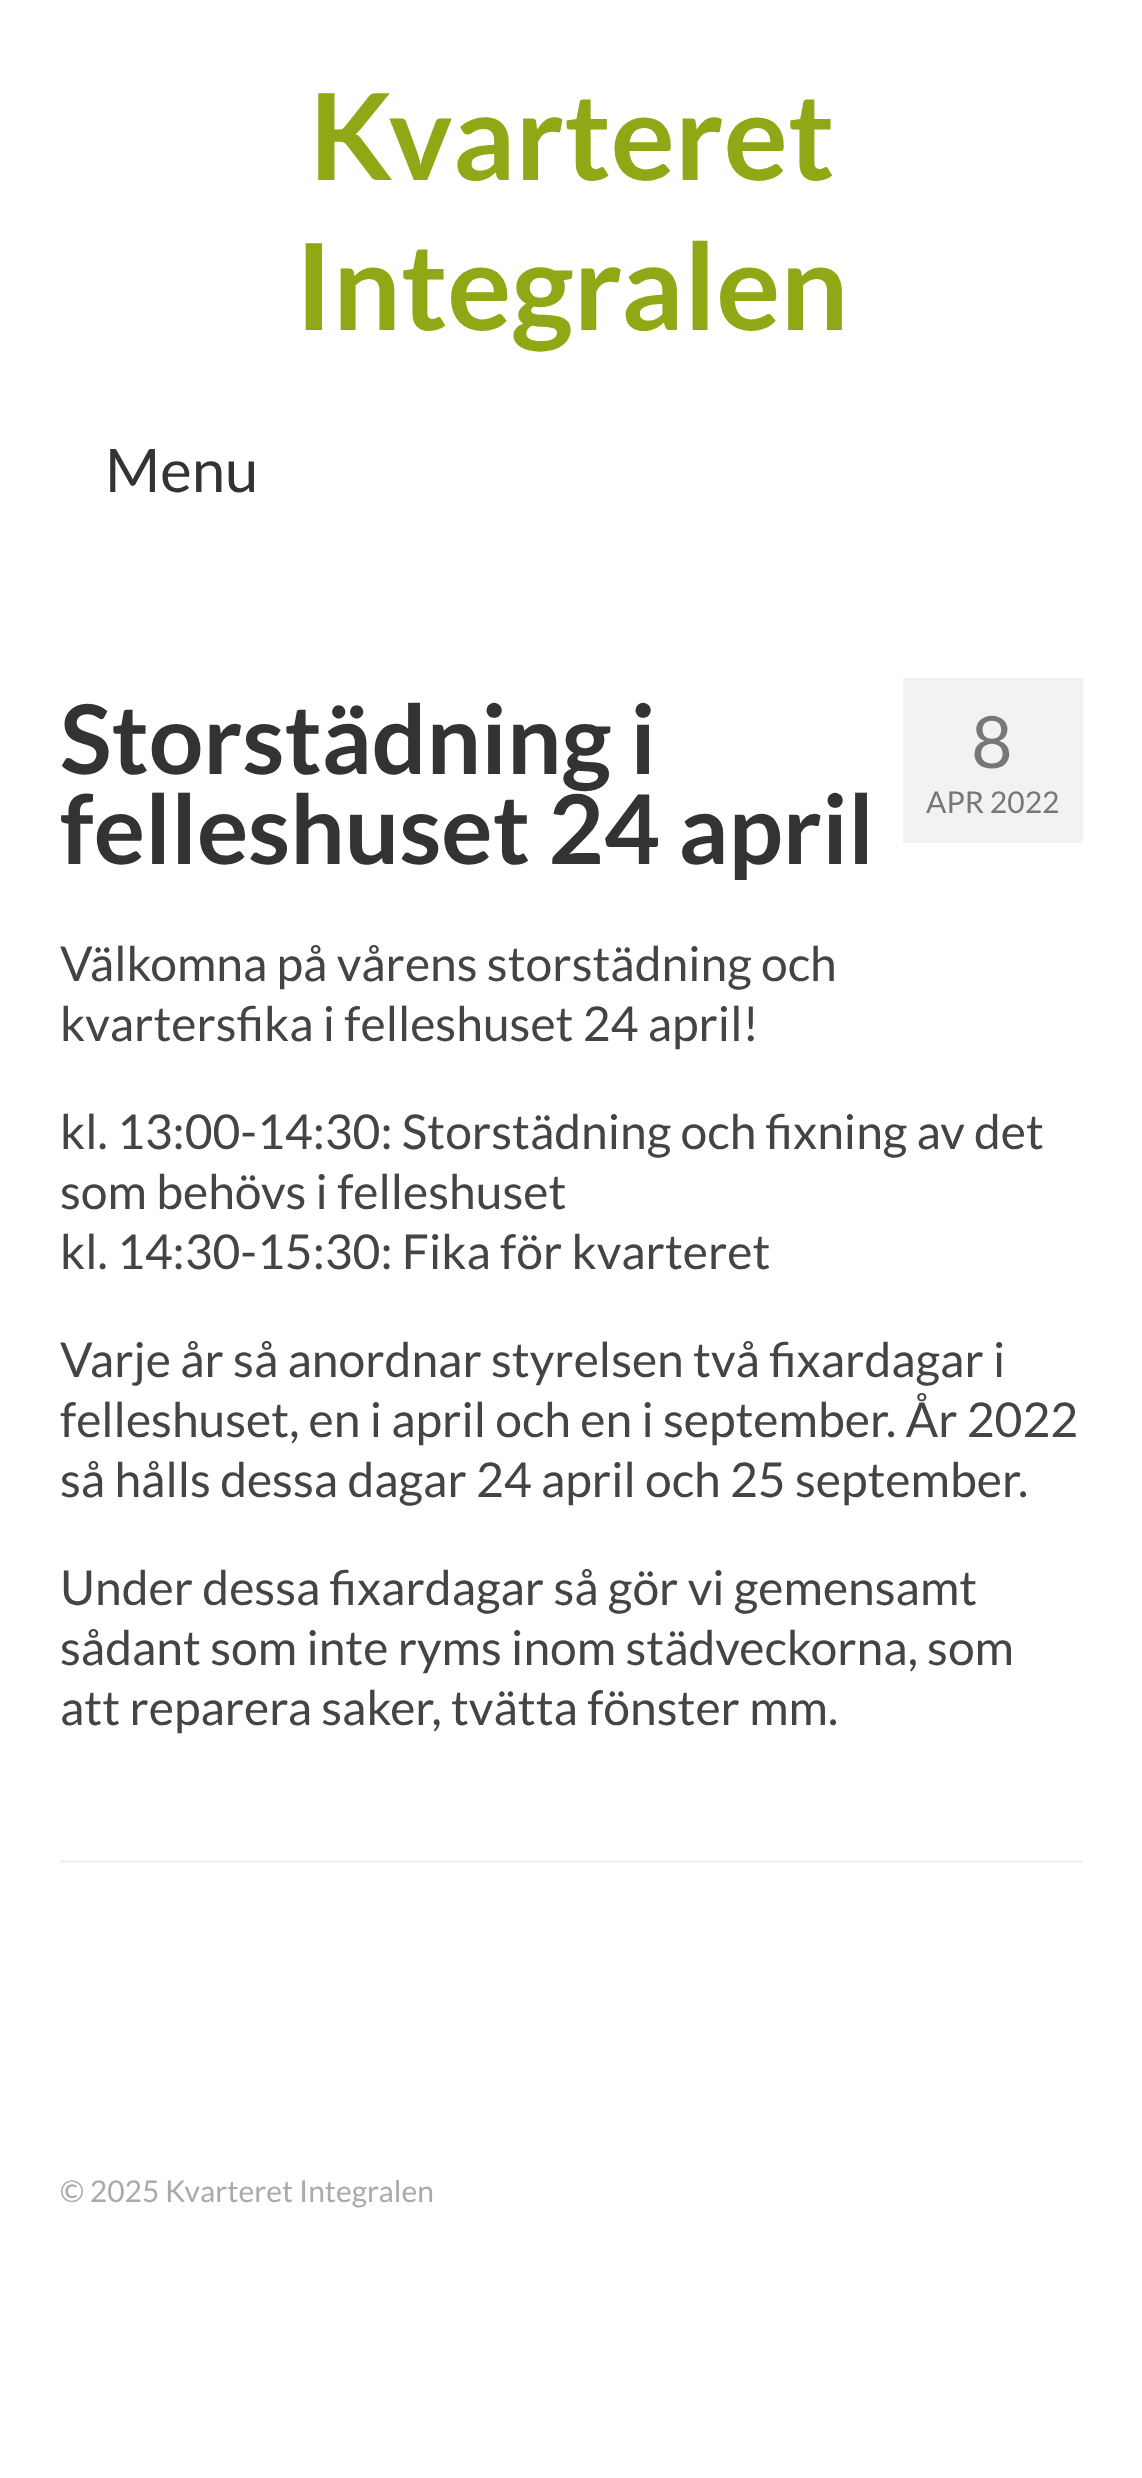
(async () => {
    const canvas = document.querySelector("canvas");
    canvas.width = 1142;
    canvas.height = 2478;
    const context = canvas.getContext("2d");
    context.miterLimit = 4;
    context.fontKerning = "normal";
    function write(s, x, y, font, color) {
        context.font = font;
        context.fillStyle = color;
        context.fillText(s, x, y);
    }
    function block(x, y, w, h, color) {
        context.fillStyle = color;
        context.fillRect(x, y, w, h);
    }

    block(0, 0, 1142, 2478, "rgb(255, 255, 255)");
    write("Kvarteret", 309, 180, "bold 120px Lato", "rgb(143, 168, 21)");
    write("Integralen", 295, 330, "bold 120px Lato", "rgb(143, 168, 21)");
    write("Menu", 105, 492, "60px Lato", "rgb(51, 51, 51)");
    write("Storstädning i", 60, 774, "bold 96px Lato", "rgb(51, 51, 51)");
    write("felleshuset 24 april", 60, 864, "bold 96px Lato", "rgb(51, 51, 51)");
    block(903, 678, 180, 165, "rgb(242, 242, 242)");
    write("8", 971, 768, "72px Lato", "rgb(119, 119, 119)");
    write("APR 2022", 926, 813, "30px Lato", "rgb(119, 119, 119)");
    write("Välkomna på vårens storstädning och", 60, 981, "48px Lato", "rgb(68, 68, 68)");
    write("kvartersfika i felleshuset 24 april!", 60, 1041, "48px Lato", "rgb(68, 68, 68)");
    write("kl. 13:00-14:30: Storstädning och fixning av det", 60, 1149, "48px Lato", "rgb(68, 68, 68)");
    write("som behövs i felleshuset", 60, 1209, "48px Lato", "rgb(68, 68, 68)");
    write("kl. 14:30-15:30: Fika för kvarteret", 60, 1269, "48px Lato", "rgb(68, 68, 68)");
    write("Varje år så anordnar styrelsen två fixardagar i", 60, 1377, "48px Lato", "rgb(68, 68, 68)");
    write("felleshuset, en i april och en i september. År 2022", 60, 1437, "48px Lato", "rgb(68, 68, 68)");
    write("så hålls dessa dagar 24 april och 25 september.", 60, 1497, "48px Lato", "rgb(68, 68, 68)");
    write("Under dessa fixardagar så gör vi gemensamt", 60, 1605, "48px Lato", "rgb(68, 68, 68)");
    write("sådant som inte ryms inom städveckorna, som", 60, 1665, "48px Lato", "rgb(68, 68, 68)");
    write("att reparera saker, tvätta fönster mm.", 60, 1725, "48px Lato", "rgb(68, 68, 68)");
    block(60, 1860, 1023, 3, "rgb(242, 242, 242)");
    write("© 2025 Kvarteret Integralen", 60, 2202, "30px Lato", "rgb(170, 170, 170)");
})();
